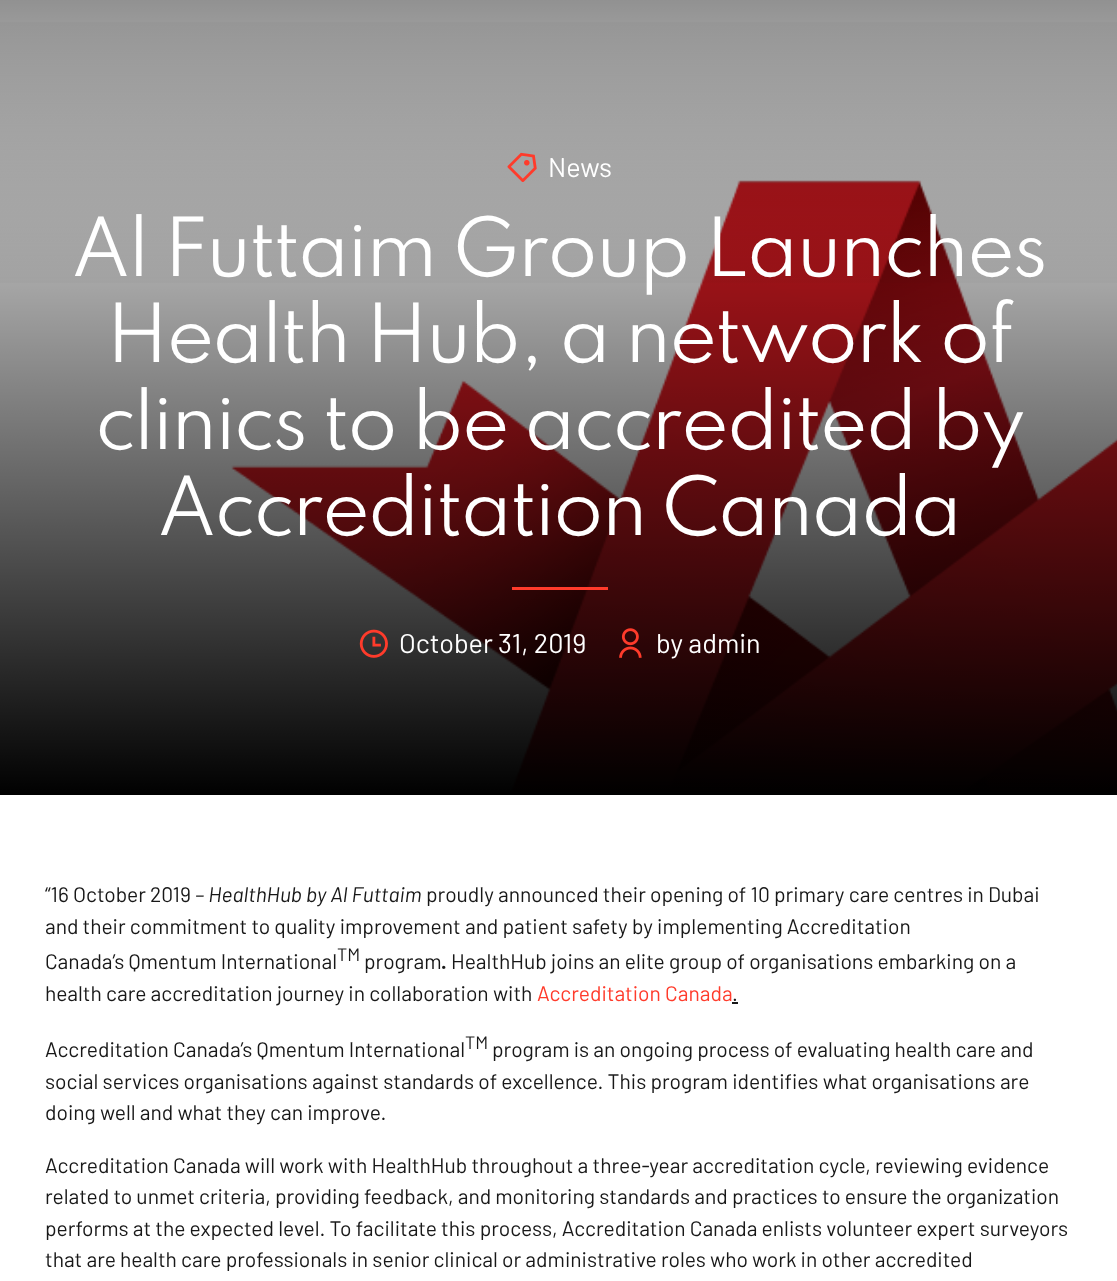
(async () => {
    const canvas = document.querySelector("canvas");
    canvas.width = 1117;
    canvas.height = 1281;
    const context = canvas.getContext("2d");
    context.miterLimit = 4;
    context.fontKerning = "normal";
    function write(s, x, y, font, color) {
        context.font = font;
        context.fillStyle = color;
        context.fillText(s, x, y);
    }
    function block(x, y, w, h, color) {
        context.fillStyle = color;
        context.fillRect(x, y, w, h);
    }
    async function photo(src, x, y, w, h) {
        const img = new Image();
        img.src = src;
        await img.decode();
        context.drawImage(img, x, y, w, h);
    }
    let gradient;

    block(0, 0, 1117, 1281, "rgb(255, 255, 255)");
    await photo("media/1.png", 231, 180, 886, 612);
    gradient = context.createLinearGradient(559, 797, 559, -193);
    gradient.addColorStop(0, "rgb(0, 0, 0)");
    gradient.addColorStop(0.8, "rgba(0, 0, 0, 0)");
    context.fillStyle = gradient;
    context.fillRect(0, 22, 1117, 773);
    gradient = context.createLinearGradient(559, -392, 559, 797);
    gradient.addColorStop(0, "rgb(0, 0, 0)");
    gradient.addColorStop(0.58, "rgba(0, 0, 0, 0)");
    context.fillStyle = gradient;
    context.fillRect(0, 0, 1117, 283);
    await photo("media/2.png", 507, 152, 30, 30);
    write("News", 548, 177, "27px Barlow", "rgb(255, 255, 255)");
    context.letterSpacing = "-2.15px";
    write("Al Futtaim Group Launches", 71, 276, "72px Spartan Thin", "rgb(255, 255, 255)");
    write("Health Hub, a network of", 106, 362, "72px Spartan Thin", "rgb(255, 255, 255)");
    write("clinics to be accredited by", 95, 449, "72px Spartan Thin", "rgb(255, 255, 255)");
    write("Accreditation Canada", 157, 535, "72px Spartan Thin", "rgb(255, 255, 255)");
    block(512, 587, 96, 3, "rgb(255, 59, 43)");
    await photo("media/3.png", 359, 629, 29, 29);
    context.letterSpacing = "0px";
    write("October 31, 2019", 399, 653, "27px Barlow", "rgb(255, 255, 255)");
    await photo("media/4.png", 619, 628, 23, 30);
    write("by admin", 656, 653, "27px Barlow", "rgb(255, 255, 255)");
    write("“16 October 2019", 45, 902, "21px Barlow", "rgb(24, 24, 24)");
    write("– HealthHub by Al Futtaim", 195, 902, "italic 21px Barlow", "rgb(24, 24, 24)");
    write("proudly announced their opening of 10 primary care centres in Dubai", 426, 902, "21px Barlow", "rgb(24, 24, 24)");
    write("and their commitment to quality improvement and patient safety by implementing Accreditation", 45, 934, "21px Barlow", "rgb(24, 24, 24)");
    write("Canada’s Qmentum International", 45, 969, "21px Barlow", "rgb(24, 24, 24)");
    write("TM", 337, 961, "18px Barlow", "rgb(24, 24, 24)");
    write("program", 364, 969, "21px Barlow", "rgb(24, 24, 24)");
    write(".", 441, 969, "bold 21px Barlow", "rgb(24, 24, 24)");
    write("HealthHub joins an elite group of organisations embarking on a", 451, 969, "21px Barlow", "rgb(24, 24, 24)");
    write("health care accreditation journey in collaboration with", 45, 1001, "21px Barlow", "rgb(24, 24, 24)");
    write("Accreditation Canada", 537, 1001, "21px Barlow", "rgb(255, 59, 43)");
    write(".", 732, 1001, "21px Barlow", "rgb(24, 24, 24)");
    block(732, 1002, 6, 2, "rgb(24, 24, 24)");
    write("Accreditation Canada’s Qmentum International", 45, 1057, "21px Barlow", "rgb(24, 24, 24)");
    write("TM", 465, 1049, "18px Barlow", "rgb(24, 24, 24)");
    write("program is an ongoing process of evaluating health care and", 492, 1057, "21px Barlow", "rgb(24, 24, 24)");
    write("social services organisations against standards of excellence. This program identifies what organisations are", 45, 1089, "21px Barlow", "rgb(24, 24, 24)");
    write("doing well and what they can improve.", 45, 1120, "21px Barlow", "rgb(24, 24, 24)");
    write("Accreditation Canada will work with HealthHub throughout a three-year accreditation cycle, reviewing evidence", 45, 1173, "21px Barlow", "rgb(24, 24, 24)");
    write("related to unmet criteria, providing feedback, and monitoring standards and practices to ensure the organization", 45, 1204, "21px Barlow", "rgb(24, 24, 24)");
    write("performs at the expected level. To facilitate this process, Accreditation Canada enlists volunteer expert surveyors", 45, 1236, "21px Barlow", "rgb(24, 24, 24)");
    write("that are health care professionals in senior clinical or administrative roles who work in other accredited", 45, 1267, "21px Barlow", "rgb(24, 24, 24)");
})();
